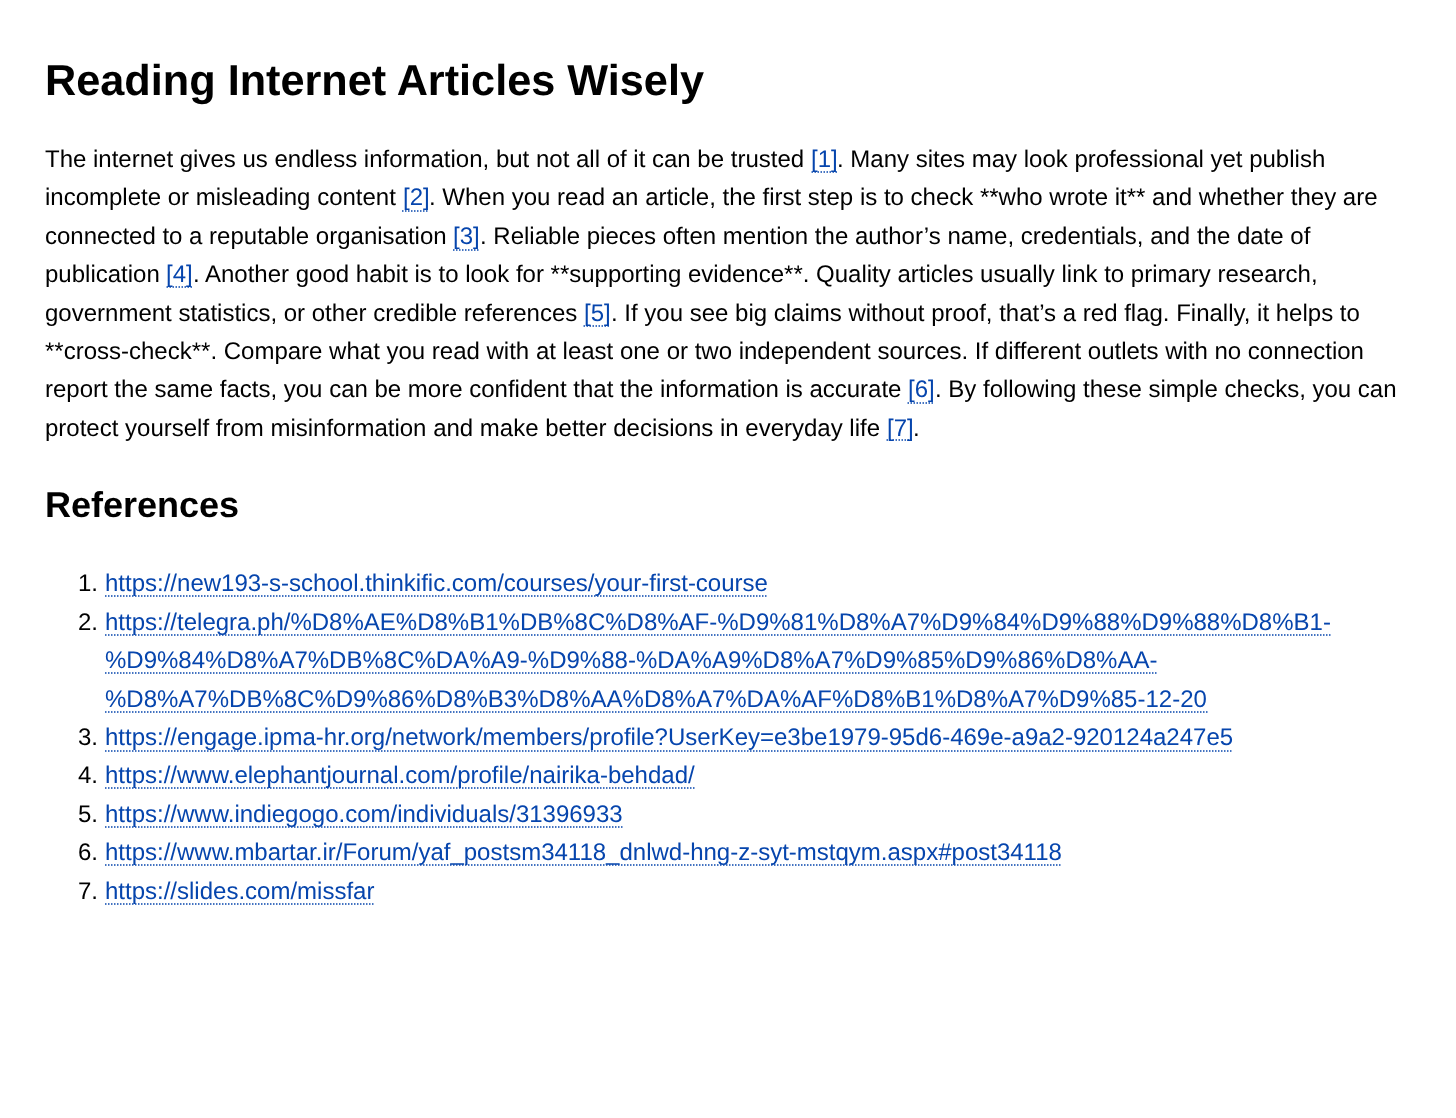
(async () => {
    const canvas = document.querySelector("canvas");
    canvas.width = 1456;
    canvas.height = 1118;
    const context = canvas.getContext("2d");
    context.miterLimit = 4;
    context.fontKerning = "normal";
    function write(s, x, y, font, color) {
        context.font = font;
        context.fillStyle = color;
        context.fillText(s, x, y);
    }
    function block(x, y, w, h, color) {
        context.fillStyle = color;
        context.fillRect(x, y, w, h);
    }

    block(0, 0, 1456, 1118, "rgb(255, 255, 255)");
    write("Reading Internet Articles Wisely", 45, 95, "bold 43.25px Liberation Sans", "rgb(0, 0, 0)");
    write("The internet gives us endless information, but not all of it can be trusted", 45, 167, "24px Liberation Sans", "rgb(0, 0, 0)");
    context.beginPath();
    context.moveTo(811.5, 172);
    context.lineTo(837, 172);
    context.strokeStyle = "rgb(6, 69, 173)";
    context.lineWidth = 1.5;
    context.setLineDash([1.5, 1.5]);
    context.stroke();
    write("[1]", 811, 167, "24px Liberation Sans", "rgb(6, 69, 173)");
    write(". Many sites may look professional yet publish", 837, 167, "24px Liberation Sans", "rgb(0, 0, 0)");
    write("incomplete or misleading content", 45, 205, "24px Liberation Sans", "rgb(0, 0, 0)");
    write("[2]", 403, 205, "24px Liberation Sans", "rgb(6, 69, 173)");
    context.beginPath();
    context.moveTo(402, 211);
    context.lineTo(429, 211);
    context.stroke();
    write(". When you read an article, the first step is to check **who wrote it** and whether they are", 429, 205, "24px Liberation Sans", "rgb(0, 0, 0)");
    write("connected to a reputable organisation", 45, 244, "24px Liberation Sans", "rgb(0, 0, 0)");
    write("[3]", 453, 244, "24px Liberation Sans", "rgb(6, 69, 173)");
    context.beginPath();
    context.moveTo(453, 250);
    context.lineTo(480, 250);
    context.stroke();
    write(". Reliable pieces often mention the author’s name, credentials, and the date of", 480, 244, "24px Liberation Sans", "rgb(0, 0, 0)");
    write("publication", 45, 282, "24px Liberation Sans", "rgb(0, 0, 0)");
    context.beginPath();
    context.moveTo(166.5, 287);
    context.lineTo(193.5, 287);
    context.stroke();
    write("[4]", 166, 282, "24px Liberation Sans", "rgb(6, 69, 173)");
    write(".", 193, 282, "24px Liberation Sans", "rgb(0, 0, 0)");
    write("Another good habit is to look for **supporting evidence**. Quality articles usually link to primary research,", 205, 282, "24px Liberation Sans", "rgb(0, 0, 0)");
    write("government statistics, or other credible references", 45, 321, "24px Liberation Sans", "rgb(0, 0, 0)");
    context.beginPath();
    context.moveTo(583.5, 326);
    context.lineTo(610.5, 326);
    context.stroke();
    write("[5]", 584, 321, "24px Liberation Sans", "rgb(6, 69, 173)");
    write(". If you see big claims without proof, that’s a red flag. Finally, it helps to", 611, 321, "24px Liberation Sans", "rgb(0, 0, 0)");
    write("**cross-check**. Compare what you read with at least one or two independent sources. If different outlets with no connection", 45, 359, "24px Liberation Sans", "rgb(0, 0, 0)");
    write("report the same facts, you can be more confident that the information is accurate", 45, 397, "24px Liberation Sans", "rgb(0, 0, 0)");
    write("[6]", 908, 397, "24px Liberation Sans", "rgb(6, 69, 173)");
    context.beginPath();
    context.moveTo(907.5, 403);
    context.lineTo(934.5, 403);
    context.stroke();
    write(". By following these simple checks, you can", 935, 397, "24px Liberation Sans", "rgb(0, 0, 0)");
    write("protect yourself from misinformation and make better decisions in everyday life", 45, 436, "24px Liberation Sans", "rgb(0, 0, 0)");
    context.beginPath();
    context.moveTo(886.5, 440);
    context.lineTo(913.5, 440);
    context.stroke();
    write("[7]", 887, 436, "24px Liberation Sans", "rgb(6, 69, 173)");
    write(".", 913, 436, "24px Liberation Sans", "rgb(0, 0, 0)");
    write("References", 45, 517, "bold 36px Liberation Sans", "rgb(0, 0, 0)");
    write("1.", 78, 591, "24px Liberation Sans", "rgb(0, 0, 0)");
    context.beginPath();
    context.moveTo(105, 596);
    context.lineTo(768, 596);
    context.stroke();
    write("https://new193-s-school.thinkific.com/courses/your-first-course", 105, 591, "24px Liberation Sans", "rgb(6, 69, 173)");
    write("2.", 78, 630, "24px Liberation Sans", "rgb(0, 0, 0)");
    context.beginPath();
    context.moveTo(105, 635);
    context.lineTo(1330.5, 635);
    context.stroke();
    write("https://telegra.ph/%D8%AE%D8%B1%DB%8C%D8%AF-%D9%81%D8%A7%D9%84%D9%88%D9%88%D8%B1-", 105, 630, "24px Liberation Sans", "rgb(6, 69, 173)");
    write("%D9%84%D8%A7%DB%8C%DA%A9-%D9%88-%DA%A9%D8%A7%D9%85%D9%86%D8%AA-", 105, 668, "24px Liberation Sans", "rgb(6, 69, 173)");
    context.beginPath();
    context.moveTo(105, 673);
    context.lineTo(1158, 673);
    context.stroke();
    write("%D8%A7%DB%8C%D9%86%D8%B3%D8%AA%D8%A7%DA%AF%D8%B1%D8%A7%D9%85-12-20", 105, 707, "24px Liberation Sans", "rgb(6, 69, 173)");
    context.beginPath();
    context.moveTo(105, 712);
    context.lineTo(1207.5, 712);
    context.stroke();
    write("3.", 78, 745, "24px Liberation Sans", "rgb(0, 0, 0)");
    write("https://engage.ipma-hr.org/network/members/profile?UserKey=e3be1979-95d6-469e-a9a2-920124a247e5", 105, 745, "24px Liberation Sans", "rgb(6, 69, 173)");
    context.beginPath();
    context.moveTo(105, 751);
    context.lineTo(1233, 751);
    context.stroke();
    write("4.", 78, 783, "24px Liberation Sans", "rgb(0, 0, 0)");
    context.beginPath();
    context.moveTo(105, 788);
    context.lineTo(694.5, 788);
    context.stroke();
    write("https://www.elephantjournal.com/profile/nairika-behdad/", 105, 783, "24px Liberation Sans", "rgb(6, 69, 173)");
    write("5.", 78, 822, "24px Liberation Sans", "rgb(0, 0, 0)");
    context.beginPath();
    context.moveTo(105, 827);
    context.lineTo(622.5, 827);
    context.stroke();
    write("https://www.indiegogo.com/individuals/31396933", 105, 822, "24px Liberation Sans", "rgb(6, 69, 173)");
    write("6.", 78, 860, "24px Liberation Sans", "rgb(0, 0, 0)");
    context.beginPath();
    context.moveTo(105, 865);
    context.lineTo(1062, 865);
    context.stroke();
    write("https://www.mbartar.ir/Forum/yaf_postsm34118_dnlwd-hng-z-syt-mstqym.aspx#post34118", 105, 860, "24px Liberation Sans", "rgb(6, 69, 173)");
    write("7.", 78, 899, "24px Liberation Sans", "rgb(0, 0, 0)");
    context.beginPath();
    context.moveTo(105, 904);
    context.lineTo(375, 904);
    context.stroke();
    write("https://slides.com/missfar", 105, 899, "24px Liberation Sans", "rgb(6, 69, 173)");
})();
